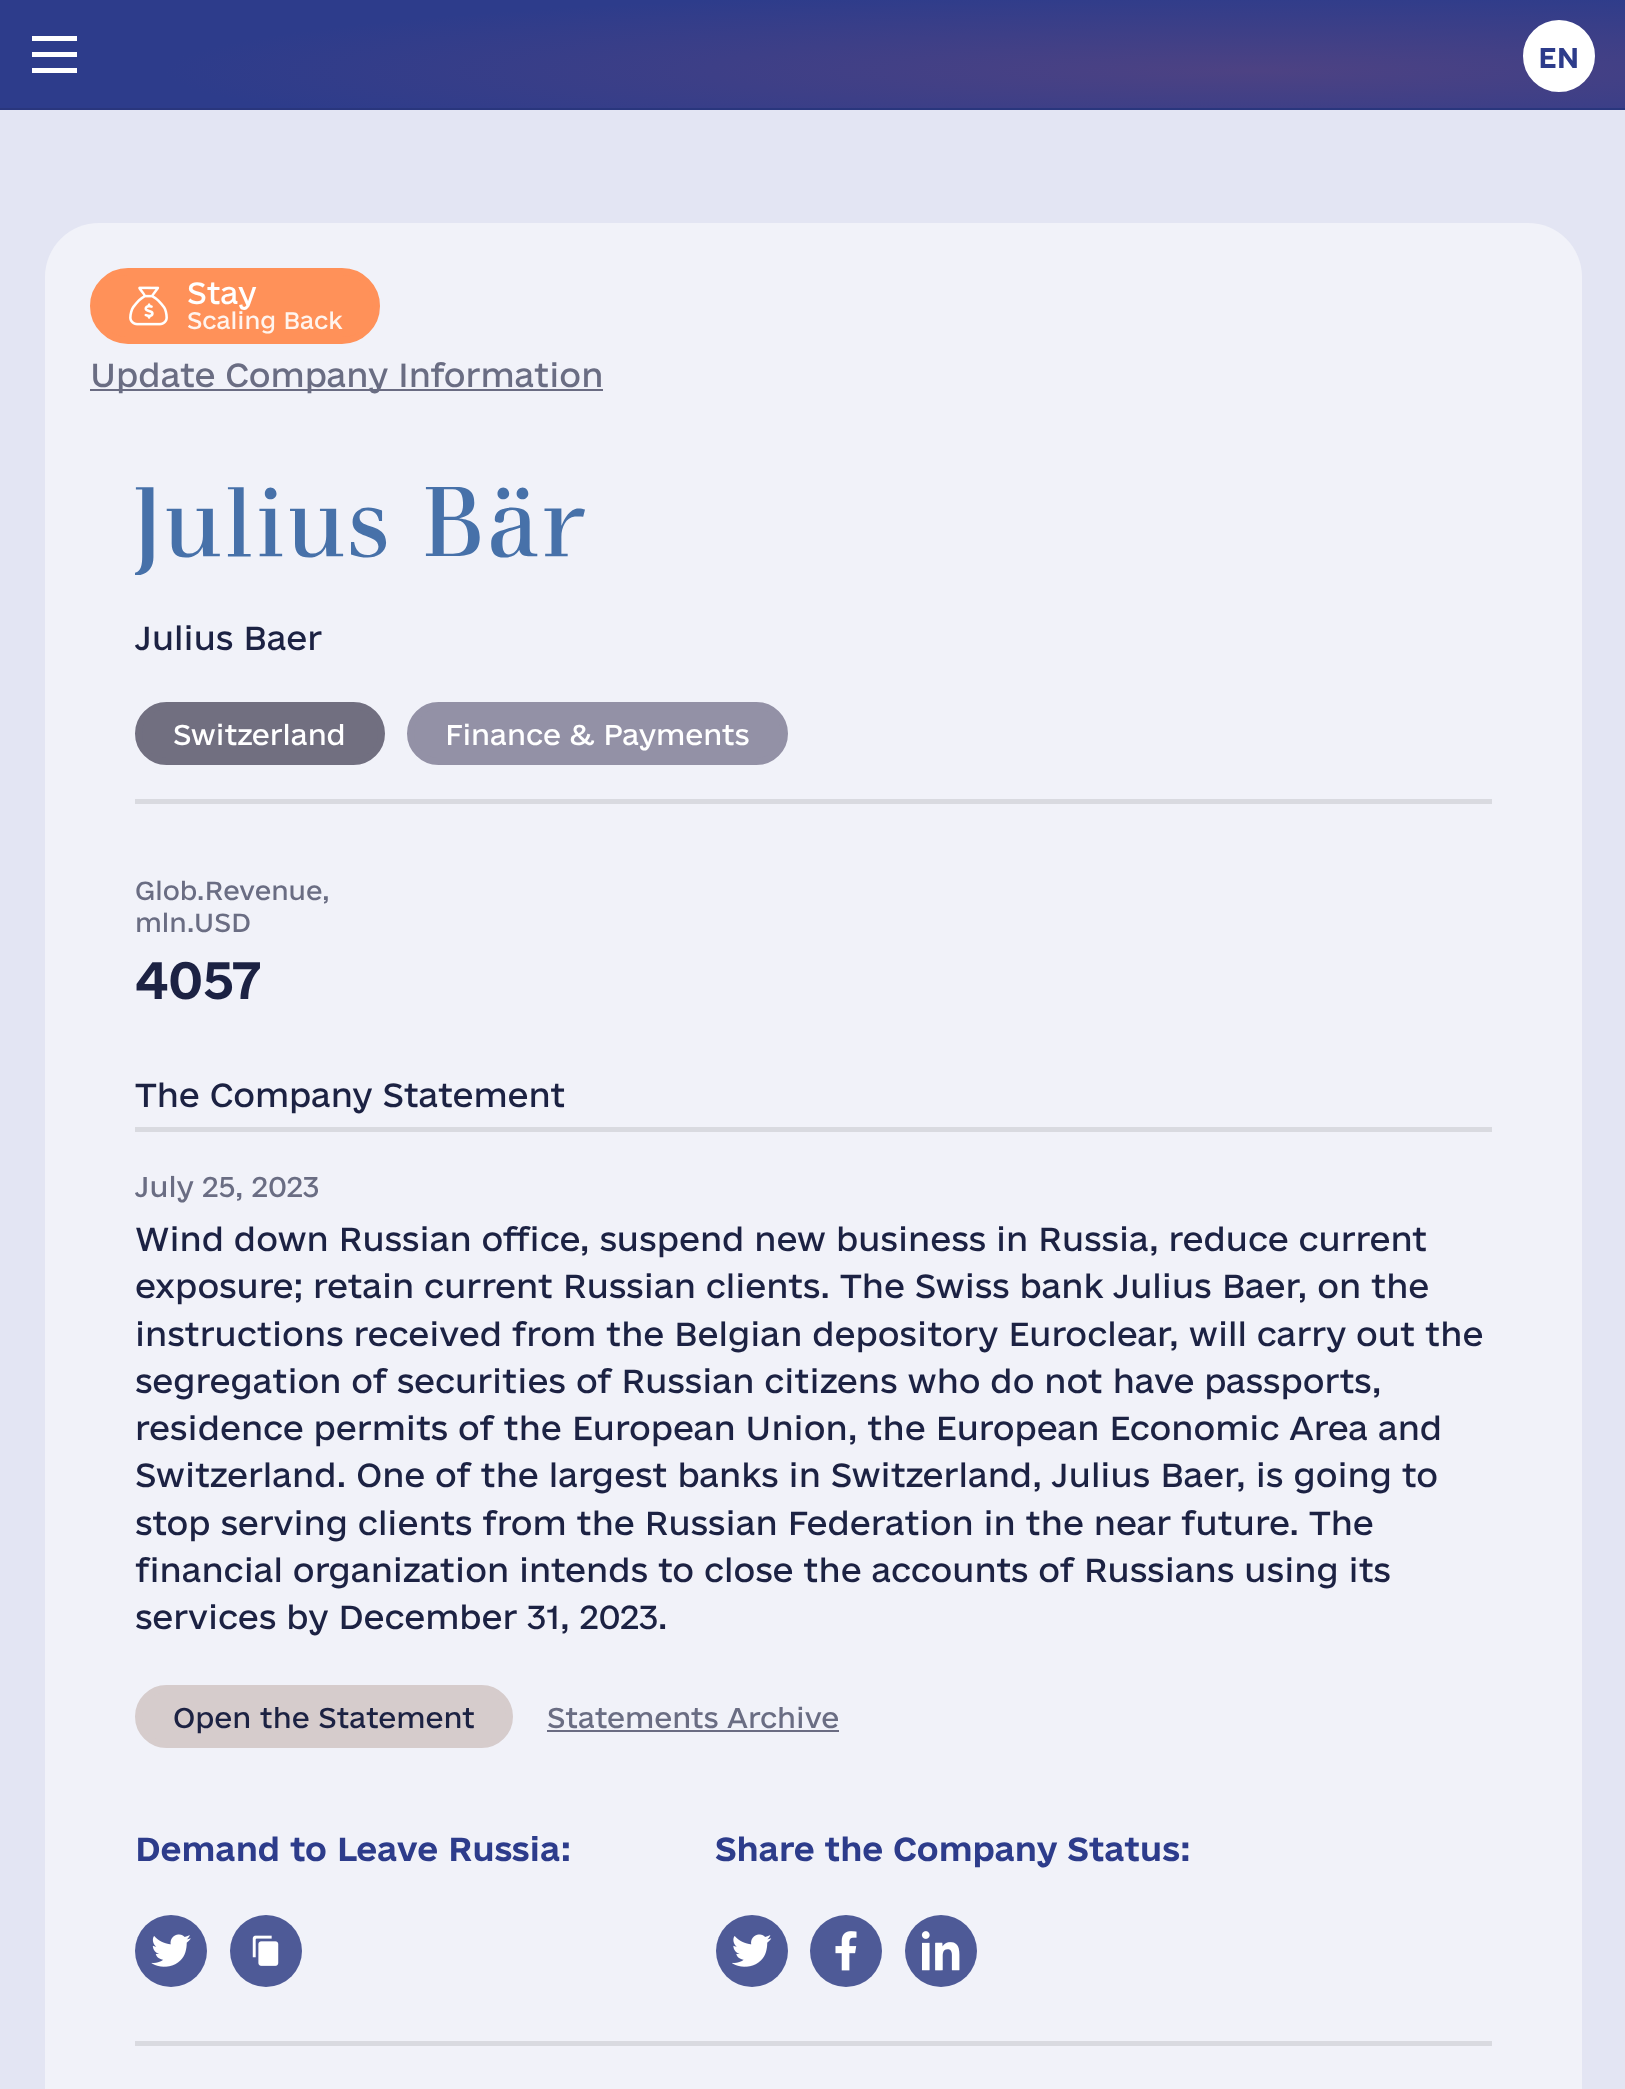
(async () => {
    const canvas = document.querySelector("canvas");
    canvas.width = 1625;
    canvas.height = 2089;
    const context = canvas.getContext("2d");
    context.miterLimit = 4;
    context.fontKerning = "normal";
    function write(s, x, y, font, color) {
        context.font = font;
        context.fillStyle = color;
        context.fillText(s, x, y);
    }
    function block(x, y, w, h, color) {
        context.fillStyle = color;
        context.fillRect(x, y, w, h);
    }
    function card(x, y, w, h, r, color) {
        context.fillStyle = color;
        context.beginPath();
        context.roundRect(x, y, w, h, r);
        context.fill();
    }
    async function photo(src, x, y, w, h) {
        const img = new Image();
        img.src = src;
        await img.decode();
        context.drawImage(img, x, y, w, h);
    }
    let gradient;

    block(0, 0, 1625, 2089, "rgb(227, 229, 243)");
    block(0, 108, 1625, 2, "rgb(41, 54, 125)");
    gradient = context.createRadialGradient(1255, 945.08, 0, 1255, 945.08, 2183);
    gradient.addColorStop(0, "rgb(77, 66, 131)");
    gradient.addColorStop(0.5, "rgb(45, 60, 139)");
    context.fillStyle = gradient;
    context.beginPath();
    context.rect(0, 0, 1625, 108);
    context.save();
    context.clip();
    context.scale(1, 164 / 2183);
    context.fillRect(0, 0, 1625, 27807);
    context.restore();
    block(32, 36, 45, 5, "rgb(255, 255, 255)");
    block(32, 52, 45, 5, "rgb(255, 255, 255)");
    block(32, 68, 45, 5, "rgb(255, 255, 255)");
    context.beginPath();
    context.arc(1559, 56, 32.5, 0, Math.PI * 2);
    context.fill();
    context.strokeStyle = "rgb(255, 255, 255)";
    context.lineWidth = 7;
    context.stroke();
    write("EN", 1538, 68, "bold 27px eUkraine", "rgb(45, 60, 139)");
    card(45, 223, 1537, 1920, 54, "rgb(241, 242, 249)");
    context.fillStyle = "rgb(255, 145, 89)";
    context.beginPath();
    context.roundRect(93.5, 271.5, 283, 69, 34.5);
    context.fill();
    context.strokeStyle = "rgb(255, 145, 89)";
    context.stroke();
    await photo("media/1.png", 129, 286, 39, 40);
    write("Stay", 187, 304, "29px eUkraine", "rgb(255, 255, 255)");
    write("Scaling Back", 187, 329, "22.5px eUkraine", "rgb(255, 244, 238)");
    block(90, 389, 513, 2, "rgb(106, 108, 130)");
    write("Update Company Information", 90, 387, "31.5px eUkraine", "rgb(106, 109, 131)");
    await photo("media/2.png", 135, 487, 450, 88);
    write("Julius Baer", 135, 650, "31.5px eUkraine", "rgb(28, 34, 67)");
    block(135, 799, 1357, 5, "rgb(217, 218, 224)");
    context.fillStyle = "rgb(113, 111, 128)";
    context.beginPath();
    context.roundRect(138.5, 705.5, 243, 56, 28);
    context.fill();
    context.strokeStyle = "rgb(113, 111, 128)";
    context.stroke();
    write("Switzerland", 173, 745, "27px eUkraine", "rgb(255, 255, 255)");
    context.fillStyle = "rgb(147, 145, 166)";
    context.beginPath();
    context.roundRect(410.5, 705.5, 374, 56, 28);
    context.fill();
    context.strokeStyle = "rgb(147, 145, 166)";
    context.stroke();
    write("Finance & Payments", 445, 745, "27px eUkraine", "rgb(255, 255, 255)");
    write("Glob.Revenue,", 135, 900, "24.75px eUkraine", "rgb(106, 109, 131)");
    write("mln.USD", 135, 932, "24.75px eUkraine", "rgb(106, 109, 131)");
    write("4057", 135, 999, "bold 49.5px eUkraine", "rgb(28, 34, 67)");
    block(135, 1127, 1357, 5, "rgb(217, 218, 224)");
    write("The Company Statement", 135, 1107, "31.5px eUkraine", "rgb(28, 34, 67)");
    write("July 25, 2023", 135, 1197, "27px eUkraine", "rgb(106, 109, 131)");
    write("Wind down Russian office, suspend new business in Russia, reduce current", 135, 1251, "31.5px eUkraine", "rgb(28, 34, 67)");
    write("exposure; retain current Russian clients. The Swiss bank Julius Baer, on the", 135, 1298, "31.5px eUkraine", "rgb(28, 34, 67)");
    write("instructions received from the Belgian depository Euroclear, will carry out the", 135, 1346, "31.5px eUkraine", "rgb(28, 34, 67)");
    write("segregation of securities of Russian citizens who do not have passports,", 135, 1393, "31.5px eUkraine", "rgb(28, 34, 67)");
    write("residence permits of the European Union, the European Economic Area and", 135, 1440, "31.5px eUkraine", "rgb(28, 34, 67)");
    write("Switzerland. One of the largest banks in Switzerland, Julius Baer, is going to", 135, 1487, "31.5px eUkraine", "rgb(28, 34, 67)");
    write("stop serving clients from the Russian Federation in the near future. The", 135, 1535, "31.5px eUkraine", "rgb(28, 34, 67)");
    write("financial organization intends to close the accounts of Russians using its", 135, 1582, "31.5px eUkraine", "rgb(28, 34, 67)");
    write("services by December 31, 2023.", 135, 1629, "31.5px eUkraine", "rgb(28, 34, 67)");
    context.fillStyle = "rgb(214, 204, 204)";
    context.beginPath();
    context.roundRect(138.5, 1688.5, 371, 56, 28);
    context.fill();
    context.strokeStyle = "rgb(214, 204, 204)";
    context.stroke();
    write("Open the Statement", 173, 1728, "27px eUkraine", "rgb(28, 34, 67)");
    write("Statements Archive", 547, 1728, "27px eUkraine", "rgb(106, 109, 131)");
    block(547, 1730, 292, 2, "rgb(106, 108, 130)");
    write("Demand to Leave Russia:", 135, 1861, "bold 31.5px eUkraine", "rgb(45, 60, 139)");
    context.fillStyle = "rgb(78, 90, 151)";
    context.beginPath();
    context.arc(171, 1951, 36, 0, Math.PI * 2);
    context.fill();
    await photo("media/3.png", 151, 1934, 40, 33);
    context.beginPath();
    context.arc(266, 1951, 36, 0, Math.PI * 2);
    context.fill();
    await photo("media/4.png", 252, 1935, 27, 31);
    write("Share the Company Status:", 715, 1861, "bold 31.5px eUkraine", "rgb(45, 60, 139)");
    context.fillStyle = "rgb(78, 90, 151)";
    context.beginPath();
    context.arc(752, 1951, 36, 0, Math.PI * 2);
    context.fill();
    await photo("media/5.png", 732, 1934, 40, 33);
    context.beginPath();
    context.arc(846, 1951, 36, 0, Math.PI * 2);
    context.fill();
    await photo("media/6.png", 835, 1931, 22, 40);
    context.beginPath();
    context.arc(941, 1951, 36, 0, Math.PI * 2);
    context.fill();
    await photo("media/7.png", 921, 1931, 39, 40);
    block(135, 2041, 1357, 5, "rgb(217, 218, 224)");
})();
